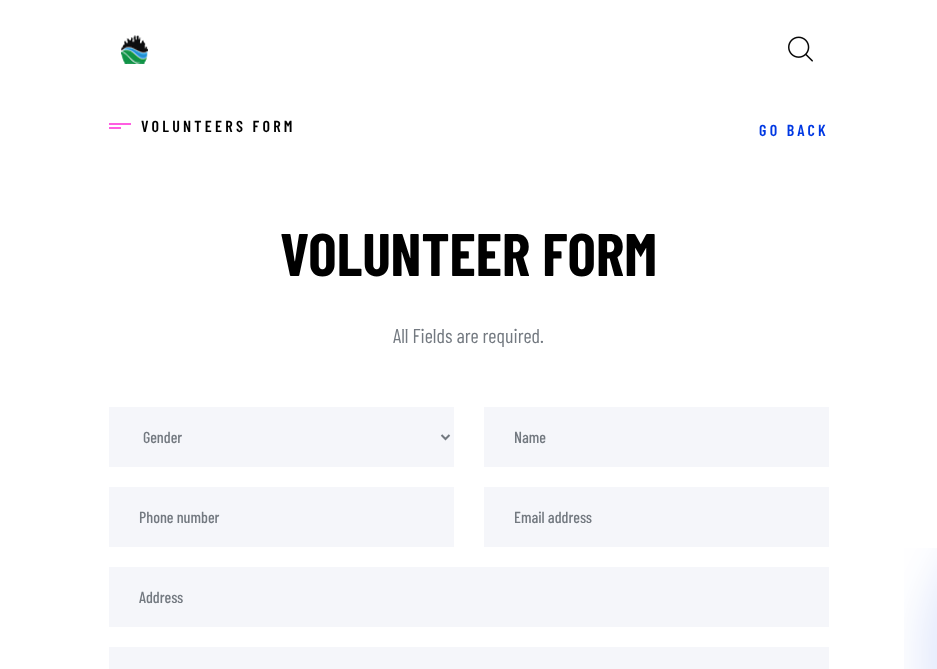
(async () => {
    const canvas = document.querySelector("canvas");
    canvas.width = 937;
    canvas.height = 669;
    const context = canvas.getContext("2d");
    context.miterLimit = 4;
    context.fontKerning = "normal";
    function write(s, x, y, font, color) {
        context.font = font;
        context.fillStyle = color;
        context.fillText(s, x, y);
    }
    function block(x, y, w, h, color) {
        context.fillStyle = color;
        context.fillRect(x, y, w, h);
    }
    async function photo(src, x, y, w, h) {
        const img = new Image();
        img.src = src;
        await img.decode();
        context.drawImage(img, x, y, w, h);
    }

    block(0, 0, 937, 669, "rgb(255, 255, 255)");
    await photo("media/1.png", 121, 35, 27, 29);
    await photo("media/2.png", 788, 36, 25, 26);
    await photo("media/3.png", 904, 548, 33, 121);
    block(109, 123, 22, 2, "rgb(255, 94, 225)");
    context.letterSpacing = "3.25px";
    write("VOLUNTEERS FORM", 141, 132, "600 16px Barlow Condensed", "rgb(0, 0, 0)");
    block(109, 127, 12, 2, "rgb(255, 94, 225)");
    write("GO BACK", 759, 136, "600 16px Barlow Condensed", "rgb(0, 56, 227)");
    context.letterSpacing = "0px";
    write("VOLUNTEER FORM", 280, 276, "bold 60px Barlow Condensed", "rgb(0, 0, 0)");
    write("All Fields are required.", 393, 343, "20px Barlow Condensed", "rgb(115, 121, 128)");
    block(109, 407, 345, 60, "rgb(245, 246, 250)");
    context.beginPath();
    context.moveTo(441.5, 435);
    context.lineTo(445.5, 439);
    context.lineTo(449.5, 435);
    context.strokeStyle = "rgb(115, 121, 128)";
    context.lineWidth = 2;
    context.stroke();
    write("Gender", 143, 443, "500 16px Barlow Condensed", "rgb(115, 121, 128)");
    block(484, 407, 345, 60, "rgb(245, 246, 250)");
    write("Name", 514, 443, "500 16px Barlow Condensed", "rgb(115, 121, 128)");
    block(109, 487, 345, 60, "rgb(245, 246, 250)");
    write("Phone number", 139, 523, "500 16px Barlow Condensed", "rgb(115, 121, 128)");
    block(484, 487, 345, 60, "rgb(245, 246, 250)");
    write("Email address", 514, 523, "500 16px Barlow Condensed", "rgb(115, 121, 128)");
    block(109, 567, 720, 60, "rgb(245, 246, 250)");
    write("Address", 139, 603, "500 16px Barlow Condensed", "rgb(115, 121, 128)");
    block(109, 647, 720, 22, "rgb(245, 246, 250)");
})();
